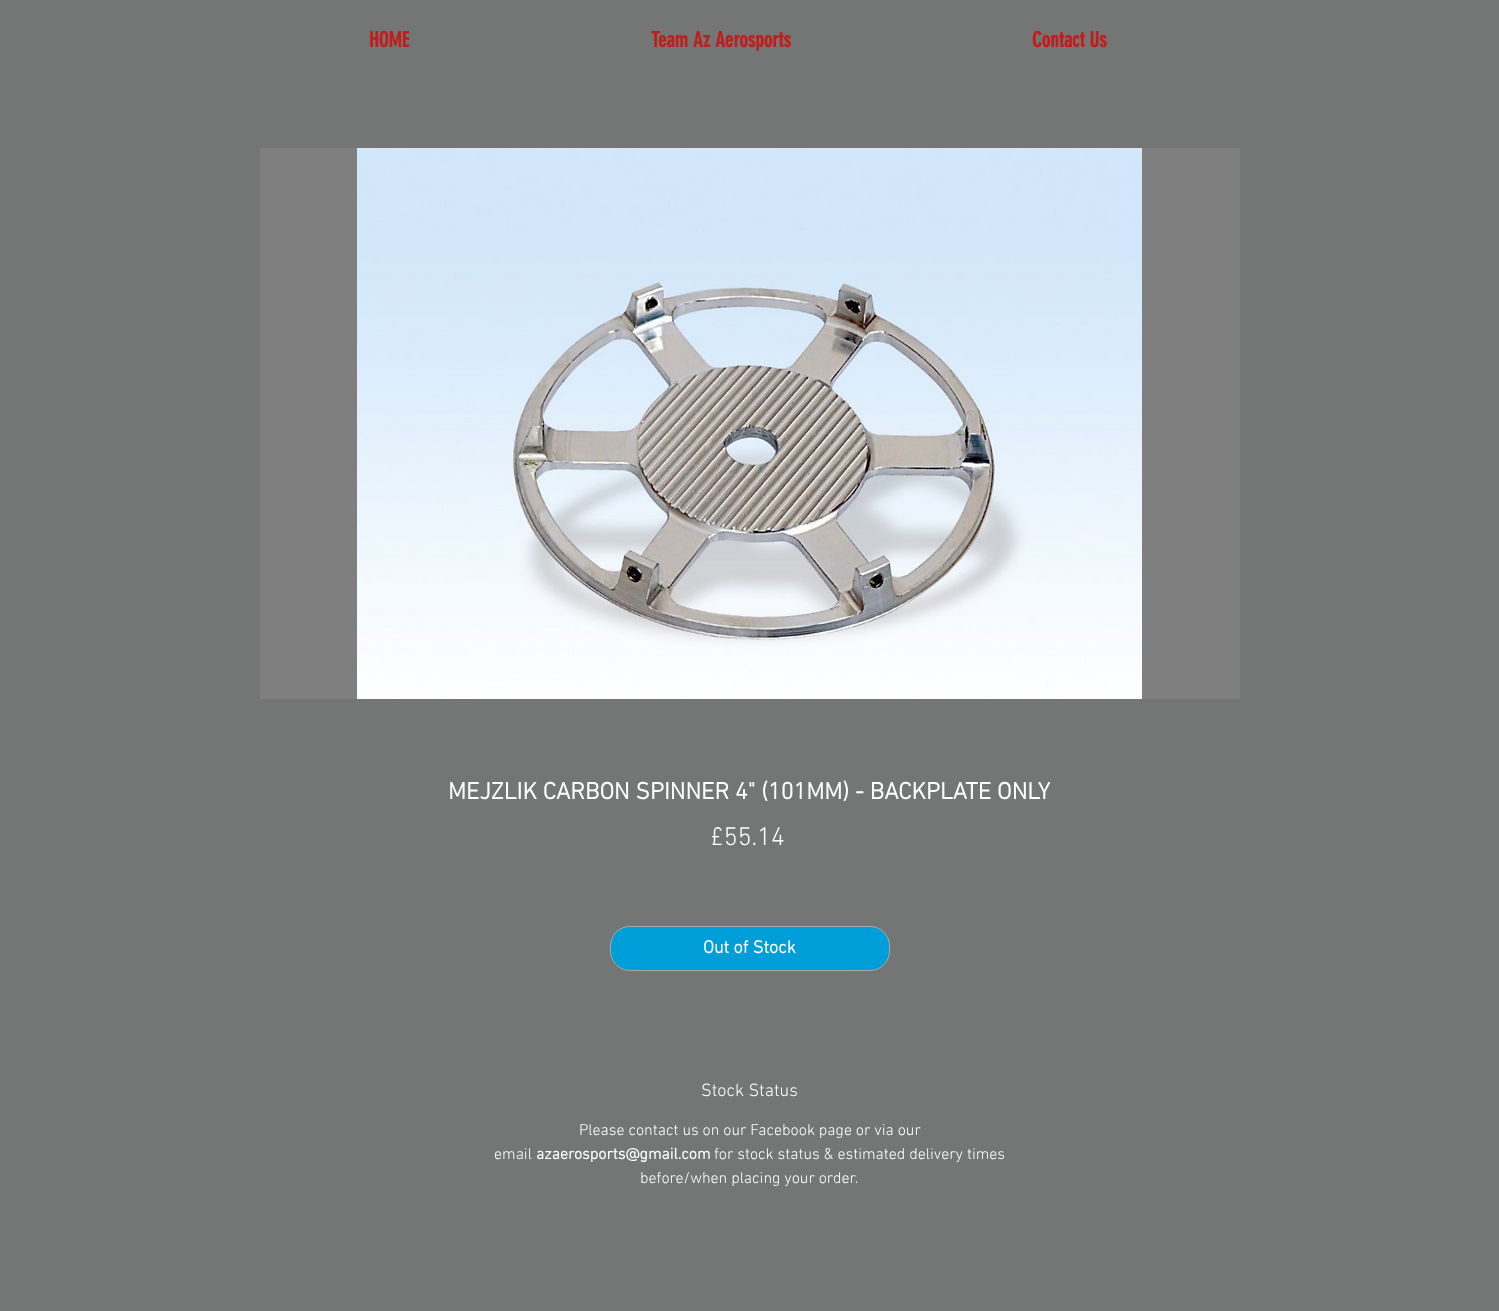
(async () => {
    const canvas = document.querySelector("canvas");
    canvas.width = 1499;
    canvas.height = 1311;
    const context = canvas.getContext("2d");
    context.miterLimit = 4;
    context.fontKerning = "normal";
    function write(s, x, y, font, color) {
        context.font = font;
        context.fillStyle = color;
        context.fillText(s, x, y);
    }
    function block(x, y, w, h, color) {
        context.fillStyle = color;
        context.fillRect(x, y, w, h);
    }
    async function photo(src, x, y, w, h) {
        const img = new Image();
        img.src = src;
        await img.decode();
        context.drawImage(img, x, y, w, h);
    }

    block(0, 0, 1499, 1311, "rgb(116, 117, 117)");
    write("HOME", 369, 47, "bold 21px 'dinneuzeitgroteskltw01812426'", "rgb(196, 27, 27)");
    write("Team Az Aerosports", 651, 47, "bold 21px 'dinneuzeitgroteskltw01812426'", "rgb(196, 27, 27)");
    write("Contact Us", 1032, 47, "bold 21px 'dinneuzeitgroteskltw01812426'", "rgb(196, 27, 27)");
    block(260, 148, 980, 551, "rgb(127, 127, 127)");
    await photo("media/1.png", 357, 148, 785, 551);
    write("MEJZLIK CARBON SPINNER 4\" (101MM) - BACKPLATE ONLY", 448, 799, "bold 24px 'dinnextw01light'", "rgb(255, 255, 255)");
    write("£55.14", 710, 845, "300 26px 'dinnextw01light'", "rgb(255, 255, 255)");
    context.fillStyle = "rgb(0, 158, 216)";
    context.beginPath();
    context.roundRect(610.5, 926.5, 279, 44, 19.5);
    context.fill();
    context.strokeStyle = "rgb(169, 169, 169)";
    context.stroke();
    write("Out of Stock", 703, 953, "bold 18px 'dinnextw01light'", "rgb(255, 255, 255)");
    write("Stock Status", 701, 1096, "300 18px 'dinnextw01light'", "rgb(255, 255, 255)");
    write("Please contact us on our Facebook page or via our", 579, 1135, "300 16px 'dinnextw01light'", "rgb(255, 255, 255)");
    write("email", 494, 1159, "300 16px 'dinnextw01light'", "rgb(255, 255, 255)");
    write("azaerosports@gmail.com", 536, 1159, "bold 16px 'dinnextw01light'", "rgb(255, 255, 255)");
    write("for stock status & estimated delivery times", 714, 1159, "300 16px 'dinnextw01light'", "rgb(255, 255, 255)");
    write("before/when placing your order.", 640, 1183, "300 16px 'dinnextw01light'", "rgb(255, 255, 255)");
})();
